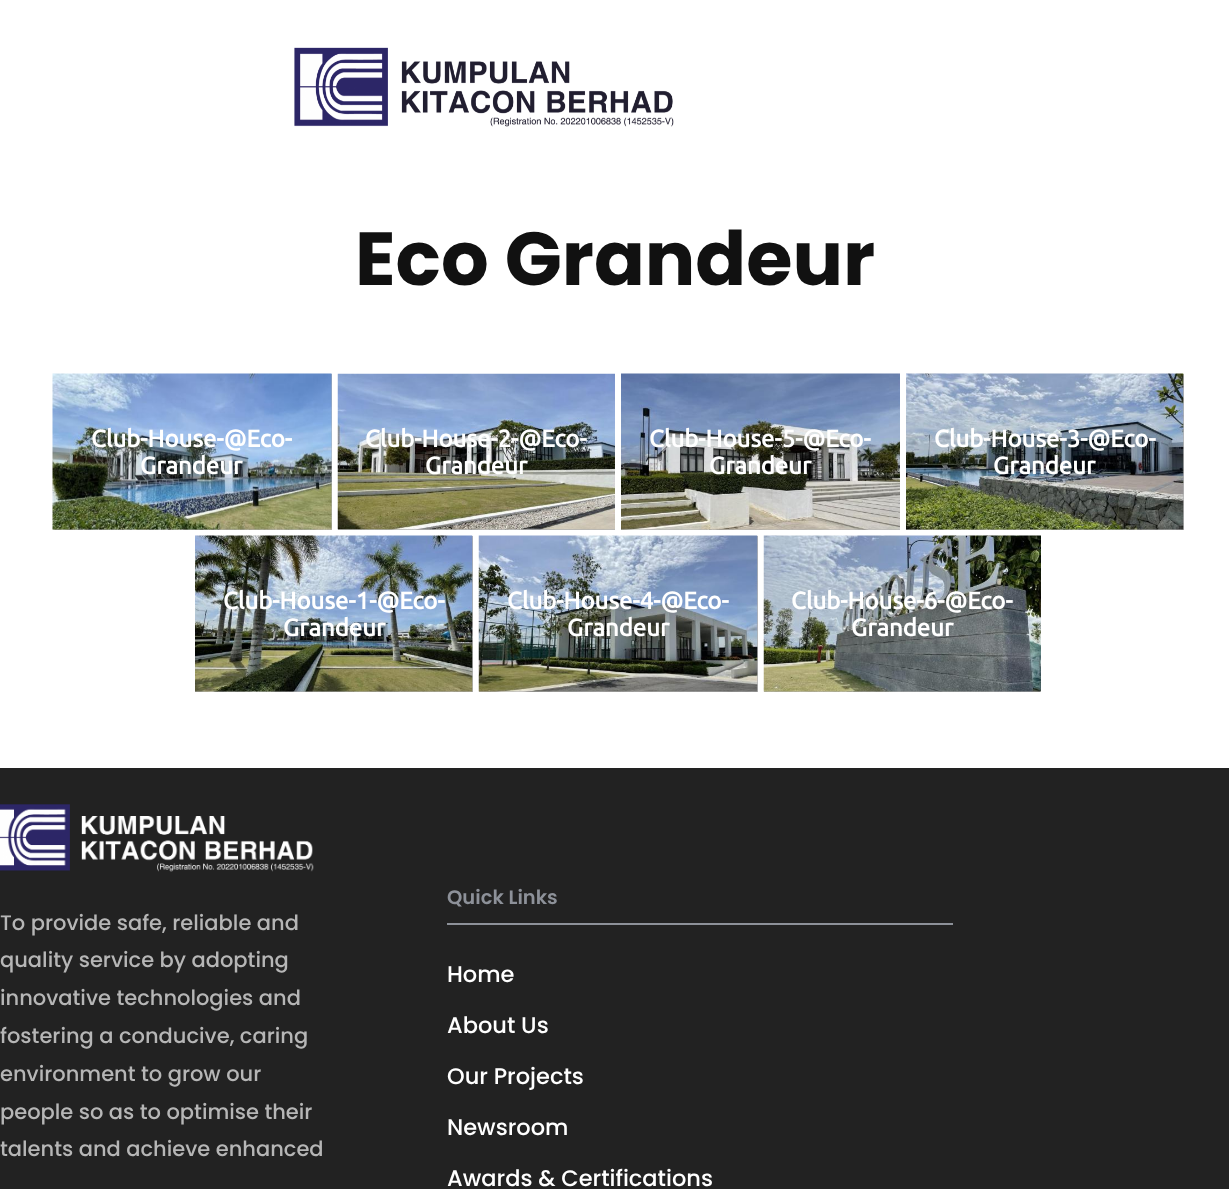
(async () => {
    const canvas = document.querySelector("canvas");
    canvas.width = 1229;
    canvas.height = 1189;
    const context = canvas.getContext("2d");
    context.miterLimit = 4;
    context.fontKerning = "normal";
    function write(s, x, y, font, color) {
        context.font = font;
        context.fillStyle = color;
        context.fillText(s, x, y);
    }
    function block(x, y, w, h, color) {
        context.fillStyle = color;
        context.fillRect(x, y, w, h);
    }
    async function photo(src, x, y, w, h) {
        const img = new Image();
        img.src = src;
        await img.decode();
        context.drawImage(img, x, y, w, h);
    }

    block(0, 0, 1229, 1189, "rgb(255, 255, 255)");
    await photo("media/1.png", 294, 47, 380, 80);
    write("Eco Grandeur", 355, 285, "bold 75px Poppins", "rgb(17, 17, 17)");
    block(53, 374, 279, 156, "rgb(179, 179, 179)");
    await photo("media/2.png", 52, 373, 280, 157);
    write("Club-House-@Eco-", 91, 447, "bold 24px Ubuntu", "rgb(255, 255, 255)");
    write("Grandeur", 140, 474, "bold 24px Ubuntu", "rgb(255, 255, 255)");
    block(338, 529, 277, 1, "rgb(179, 179, 179)");
    await photo("media/3.png", 337, 373, 278, 157);
    write("Club-House-2-@Eco-", 365, 447, "bold 24px Ubuntu", "rgb(255, 255, 255)");
    write("Grandeur", 425, 474, "bold 24px Ubuntu", "rgb(255, 255, 255)");
    block(621, 529, 279, 1, "rgb(179, 179, 179)");
    await photo("media/4.png", 621, 373, 279, 157);
    write("Club-House-5-@Eco-", 649, 447, "bold 24px Ubuntu", "rgb(255, 255, 255)");
    write("Grandeur", 709, 474, "bold 24px Ubuntu", "rgb(255, 255, 255)");
    block(906, 374, 278, 156, "rgb(179, 179, 179)");
    await photo("media/5.png", 906, 373, 278, 157);
    write("Club-House-3-@Eco-", 934, 447, "bold 24px Ubuntu", "rgb(255, 255, 255)");
    write("Grandeur", 993, 474, "bold 24px Ubuntu", "rgb(255, 255, 255)");
    block(195, 536, 278, 156, "rgb(179, 179, 179)");
    await photo("media/6.png", 195, 535, 278, 157);
    write("Club-House-1-@Eco-", 223, 609, "bold 24px Ubuntu", "rgb(255, 255, 255)");
    write("Grandeur", 283, 636, "bold 24px Ubuntu", "rgb(255, 255, 255)");
    block(479, 536, 279, 156, "rgb(179, 179, 179)");
    await photo("media/7.png", 478, 535, 280, 157);
    write("Club-House-4-@Eco-", 507, 609, "bold 24px Ubuntu", "rgb(255, 255, 255)");
    write("Grandeur", 567, 636, "bold 24px Ubuntu", "rgb(255, 255, 255)");
    block(764, 691, 277, 1, "rgb(179, 179, 179)");
    await photo("media/8.png", 763, 535, 278, 157);
    write("Club-House-6-@Eco-", 791, 609, "bold 24px Ubuntu", "rgb(255, 255, 255)");
    write("Grandeur", 851, 636, "bold 24px Ubuntu", "rgb(255, 255, 255)");
    block(0, 768, 1229, 421, "rgb(34, 34, 34)");
    await photo("media/9.png", 0, 804, 314, 68);
    write("To provide safe, reliable and", 0, 930, "500 21px Poppins", "rgb(182, 182, 182)");
    write("quality service by adopting", 0, 967, "500 21px Poppins", "rgb(182, 182, 182)");
    write("innovative technologies and", 0, 1005, "500 21px Poppins", "rgb(182, 182, 182)");
    write("fostering a conducive, caring", 0, 1043, "500 21px Poppins", "rgb(182, 182, 182)");
    write("environment to grow our", 0, 1081, "500 21px Poppins", "rgb(182, 182, 182)");
    write("people so as to optimise their", 0, 1119, "500 21px Poppins", "rgb(182, 182, 182)");
    write("talents and achieve enhanced", 0, 1156, "500 21px Poppins", "rgb(182, 182, 182)");
    block(447, 923, 506, 2, "rgb(141, 145, 153)");
    write("Quick Links", 447, 904, "600 19.5px Poppins", "rgb(141, 145, 153)");
    write("Home", 447, 982, "500 22.5px Poppins", "rgb(255, 255, 255)");
    write("About Us", 447, 1033, "500 22.5px Poppins", "rgb(255, 255, 255)");
    write("Our Projects", 447, 1084, "500 22.5px Poppins", "rgb(255, 255, 255)");
    write("Newsroom", 447, 1135, "500 22.5px Poppins", "rgb(255, 255, 255)");
    write("Awards & Certifications", 447, 1186, "500 22.5px Poppins", "rgb(255, 255, 255)");
})();
